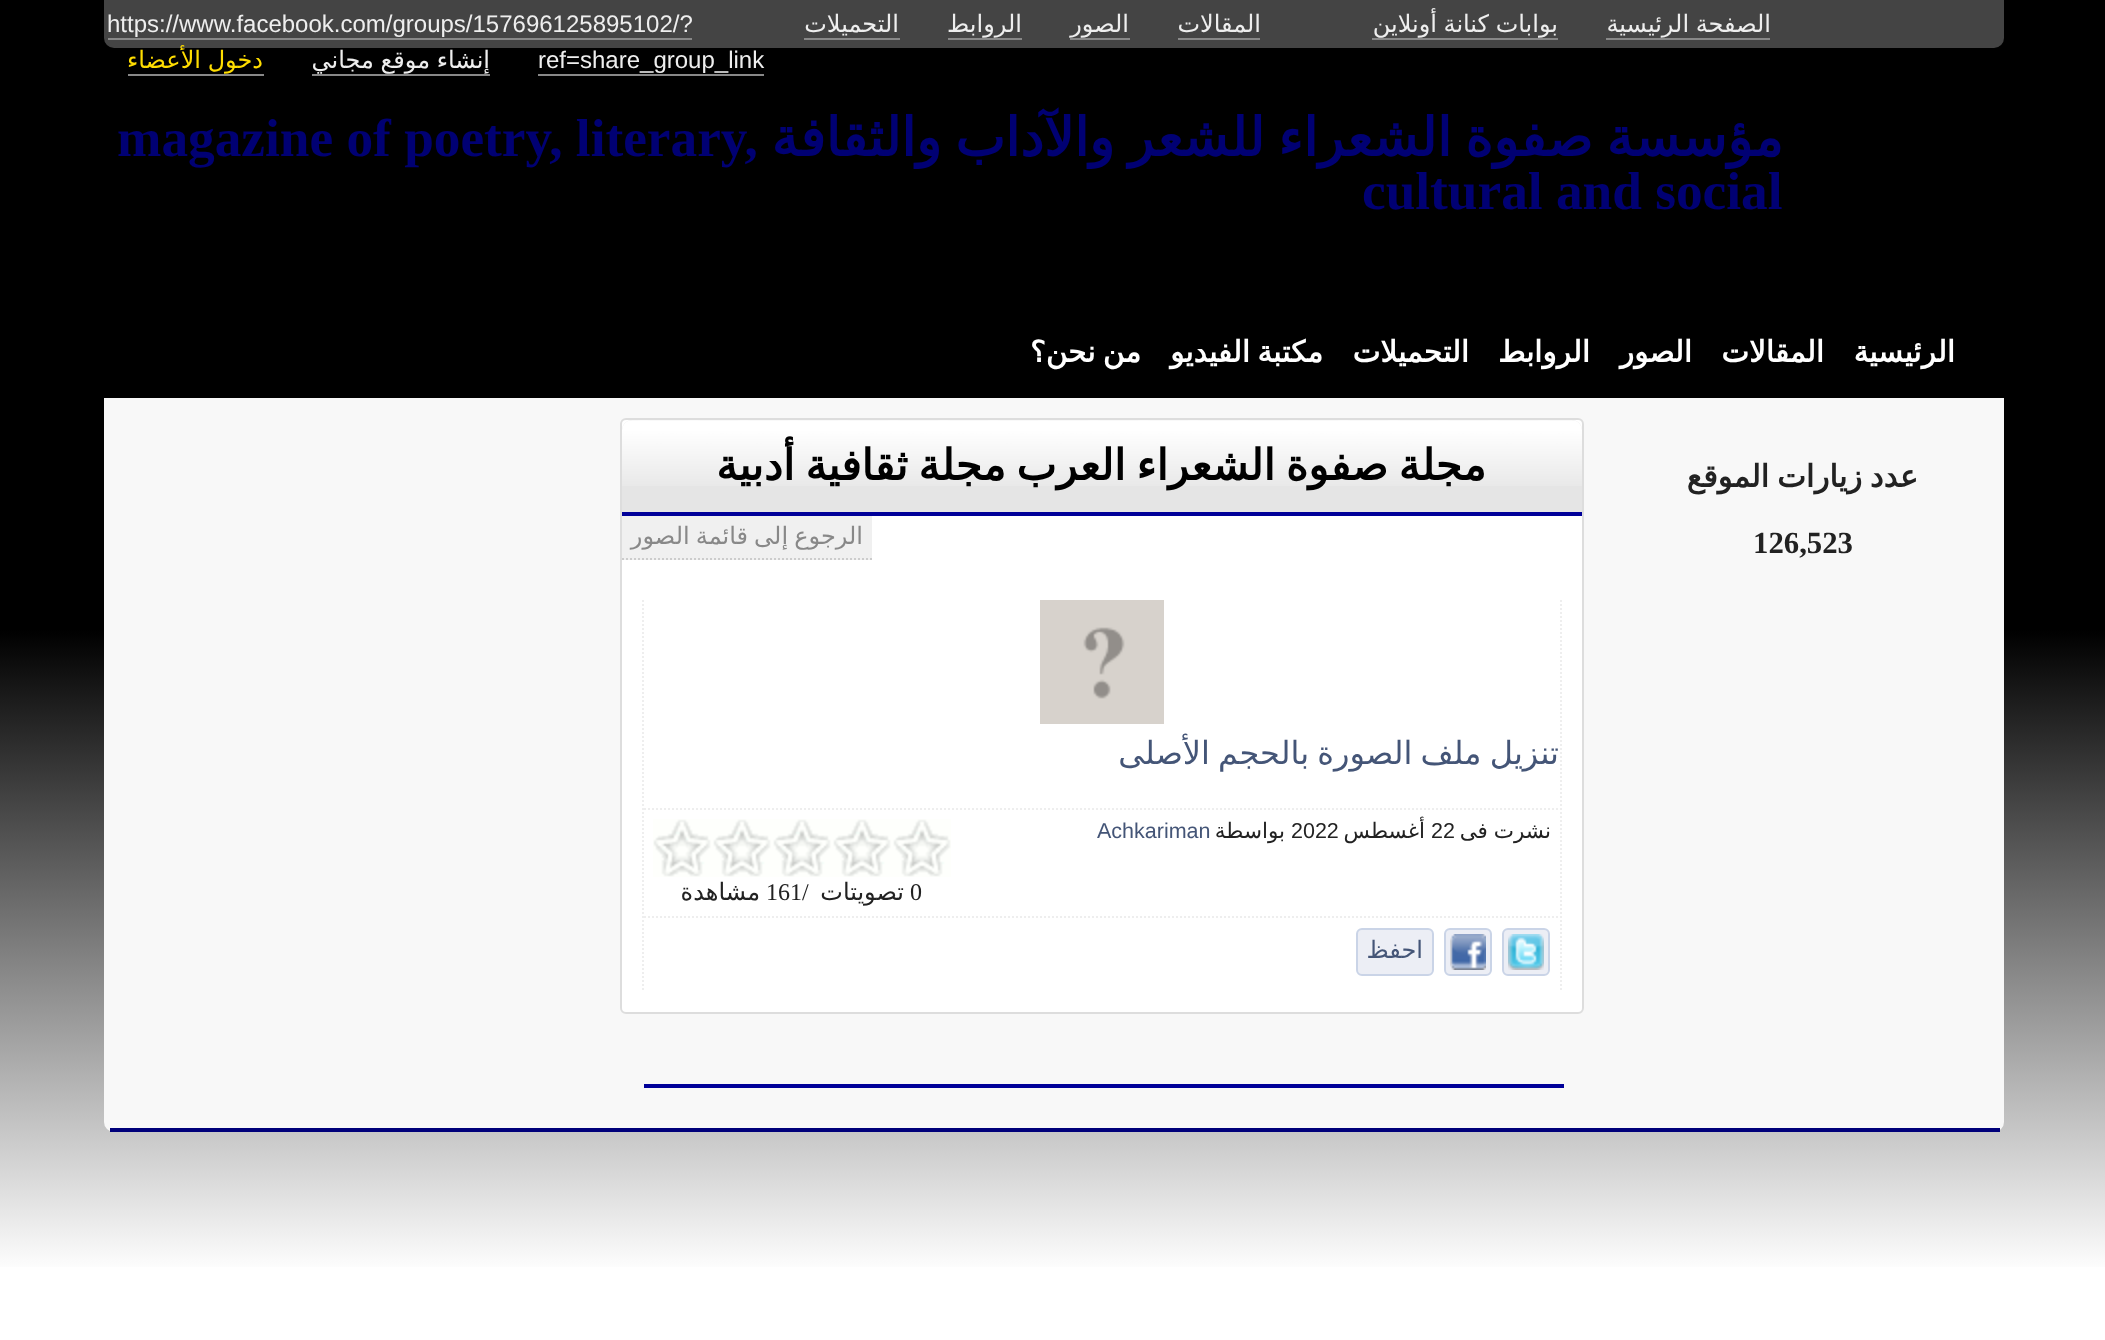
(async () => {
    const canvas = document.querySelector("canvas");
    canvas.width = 2105;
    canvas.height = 1340;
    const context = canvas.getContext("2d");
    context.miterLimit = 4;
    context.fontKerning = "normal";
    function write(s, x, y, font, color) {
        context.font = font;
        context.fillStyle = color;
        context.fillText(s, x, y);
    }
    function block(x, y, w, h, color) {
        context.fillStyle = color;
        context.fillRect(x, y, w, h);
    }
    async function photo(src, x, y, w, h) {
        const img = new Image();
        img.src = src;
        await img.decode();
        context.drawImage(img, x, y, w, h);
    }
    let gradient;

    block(0, 0, 2105, 1340, "rgb(255, 255, 255)");
    gradient = context.createLinearGradient(0, 1340, 0, 0);
    gradient.addColorStop(0.05, "rgb(255, 255, 255)");
    gradient.addColorStop(0.53, "rgb(0, 0, 0)");
    context.fillStyle = gradient;
    context.fillRect(0, 0, 2105, 1267);
    context.fillStyle = "rgb(68, 68, 68)";
    context.beginPath();
    context.roundRect(104, 0, 1900, 48, [0, 0, 10, 10]);
    context.fill();
    context.wordSpacing = "-1px";
    context.direction = "rtl";
    write("الصفحة الرئيسية", 1771, 32, "24px DejaVu Sans", "rgb(238, 238, 238)");
    block(1606, 38, 164, 2, "rgb(136, 136, 136)");
    write("بوابات كنانة أونلاين", 1558, 32, "24px DejaVu Sans", "rgb(238, 238, 238)");
    block(1372, 38, 186, 2, "rgb(136, 136, 136)");
    context.wordSpacing = "0px";
    write("المقالات", 1261, 32, "24px DejaVu Sans", "rgb(238, 238, 238)");
    block(1178, 38, 82, 2, "rgb(136, 136, 136)");
    write("الصور", 1129, 32, "24px DejaVu Sans", "rgb(238, 238, 238)");
    block(1070, 38, 60, 2, "rgb(136, 136, 136)");
    write("الروابط", 1022, 32, "24px DejaVu Sans", "rgb(238, 238, 238)");
    block(948, 38, 74, 2, "rgb(136, 136, 136)");
    write("التحميلات", 899, 32, "24px DejaVu Sans", "rgb(238, 238, 238)");
    block(804, 38, 96, 2, "rgb(136, 136, 136)");
    context.direction = "ltr";
    write("https://www.facebook.com/groups/157696125895102/?", 107, 32, "24px Liberation Sans", "rgb(238, 238, 238)");
    block(108, 38, 584, 2, "rgb(136, 136, 136)");
    write("ref=share_group_link", 538, 68, "24px Liberation Sans", "rgb(238, 238, 238)");
    block(538, 74, 226, 2, "rgb(136, 136, 136)");
    context.wordSpacing = "-1px";
    context.direction = "rtl";
    write("إنشاء موقع مجاني", 490, 68, "24px DejaVu Sans", "rgb(238, 238, 238)");
    block(312, 74, 178, 2, "rgb(136, 136, 136)");
    write("دخول الأعضاء", 263, 68, "24px DejaVu Sans", "rgb(255, 221, 0)");
    block(128, 74, 136, 2, "rgb(136, 136, 136)");
    context.wordSpacing = "-3.5px";
    write("مؤسسة صفوة الشعراء للشعر والآداب والثقافة", 1783, 156, "bold 53.3px DejaVu Sans", "rgb(0, 0, 115)");
    context.wordSpacing = "0px";
    context.direction = "ltr";
    write("magazine of poetry, literary,", 117, 156, "bold 53.3px Liberation Serif", "rgb(0, 0, 115)");
    write("cultural and social", 1362, 209, "bold 53.3px Liberation Serif", "rgb(0, 0, 115)");
    context.direction = "rtl";
    write("الرئيسية", 1955, 362, "bold 29.5px DejaVu Sans", "rgb(255, 255, 255)");
    write("المقالات", 1824, 362, "bold 29.5px DejaVu Sans", "rgb(255, 255, 255)");
    write("الصور", 1692, 362, "bold 29.5px DejaVu Sans", "rgb(255, 255, 255)");
    write("الروابط", 1590, 362, "bold 29.5px DejaVu Sans", "rgb(255, 255, 255)");
    write("التحميلات", 1469, 362, "bold 29.5px DejaVu Sans", "rgb(255, 255, 255)");
    context.wordSpacing = "-2px";
    write("مكتبة الفيديو", 1323, 362, "bold 29.5px DejaVu Sans", "rgb(255, 255, 255)");
    write("من نحن؟", 1141, 362, "bold 29.5px DejaVu Sans", "rgb(255, 255, 255)");
    context.fillStyle = "rgb(248, 248, 248)";
    context.beginPath();
    context.roundRect(104, 398, 1900, 734, [0, 0, 10, 10]);
    context.fill();
    block(110, 1128, 1890, 4, "rgb(0, 0, 122)");
    write("عدد زيارات الموقع", 1918, 487, "bold 30.75px DejaVu Sans", "rgb(34, 34, 34)");
    context.wordSpacing = "0px";
    context.direction = "ltr";
    write("126,523", 1753, 553, "bold 30.75px Liberation Serif", "rgb(34, 34, 34)");
    context.fillStyle = "rgb(255, 255, 255)";
    context.beginPath();
    context.roundRect(621, 419, 962, 594, 5);
    context.fill();
    context.strokeStyle = "rgb(221, 221, 221)";
    context.lineWidth = 2;
    context.stroke();
    context.fillStyle = "rgb(229, 229, 229)";
    context.beginPath();
    context.roundRect(622, 420, 960, 96, [10, 10, 0, 0]);
    context.fill();
    await photo("media/1.png", 622, 420, 960, 66);
    block(622, 512, 960, 4, "rgb(0, 0, 153)");
    context.wordSpacing = "-3px";
    context.direction = "rtl";
    write("مجلة صفوة الشعراء العرب مجلة ثقافية أدبية", 1486, 480, "bold 42.7px DejaVu Sans", "rgb(0, 0, 0)");
    block(622, 516, 250, 44, "rgb(240, 240, 240)");
    context.beginPath();
    context.moveTo(622, 559);
    context.lineTo(872, 559);
    context.strokeStyle = "rgb(204, 204, 204)";
    context.setLineDash([2, 2]);
    context.stroke();
    context.wordSpacing = "-1.5px";
    write("الرجوع إلى قائمة الصور", 863, 544, "24px DejaVu Sans", "rgb(136, 136, 136)");
    context.beginPath();
    context.moveTo(1561, 600);
    context.lineTo(1561, 992);
    context.strokeStyle = "rgb(238, 238, 238)";
    context.stroke();
    context.beginPath();
    context.moveTo(643, 600);
    context.lineTo(643, 992);
    context.stroke();
    await photo("media/2.png", 1040, 600, 124, 124);
    context.wordSpacing = "-2px";
    write("تنزيل ملف الصورة بالحجم الأصلى", 1559, 764, "32px DejaVu Sans", "rgb(68, 85, 119)");
    context.beginPath();
    context.moveTo(644, 809);
    context.lineTo(1560, 809);
    context.stroke();
    context.beginPath();
    context.moveTo(644, 917);
    context.lineTo(1560, 917);
    context.stroke();
    context.wordSpacing = "-1px";
    write("نشرت فى", 1551, 838, "21.5px DejaVu Sans", "rgb(34, 34, 34)");
    context.wordSpacing = "0px";
    context.direction = "ltr";
    write("22", 1431, 838, "21.5px Liberation Sans", "rgb(34, 34, 34)");
    context.direction = "rtl";
    write("أغسطس", 1425, 838, "21.5px DejaVu Sans", "rgb(34, 34, 34)");
    context.direction = "ltr";
    write("2022", 1291, 838, "21.5px Liberation Sans", "rgb(34, 34, 34)");
    context.direction = "rtl";
    write("بواسطة", 1285, 838, "21.5px DejaVu Sans", "rgb(34, 34, 34)");
    context.direction = "ltr";
    write("Achkariman", 1097, 838, "21.5px Liberation Sans", "rgb(68, 85, 119)");
    await photo("media/3.png", 653, 819, 298, 58);
    write("0", 910, 900, "24px Liberation Serif", "rgb(34, 34, 34)");
    context.direction = "rtl";
    write("تصويتات", 904, 900, "24px DejaVu Sans", "rgb(34, 34, 34)");
    context.direction = "ltr";
    write("161/", 766, 900, "24px Liberation Serif", "rgb(34, 34, 34)");
    context.direction = "rtl";
    write("مشاهدة", 760, 900, "24px DejaVu Sans", "rgb(34, 34, 34)");
    context.fillStyle = "rgb(236, 238, 245)";
    context.beginPath();
    context.roundRect(1503, 929, 46, 46, 5);
    context.fill();
    context.strokeStyle = "rgb(202, 212, 231)";
    context.setLineDash([]);
    context.stroke();
    await photo("media/4.png", 1508, 934, 36, 36);
    context.beginPath();
    context.roundRect(1445, 929, 46, 46, 5);
    context.fill();
    context.stroke();
    await photo("media/5.png", 1450, 934, 36, 36);
    context.beginPath();
    context.roundRect(1357, 929, 76, 46, 5);
    context.fill();
    context.stroke();
    write("احفظ", 1423, 958, "24px DejaVu Sans", "rgb(68, 85, 119)");
    block(644, 1084, 920, 4, "rgb(0, 0, 153)");
})();
